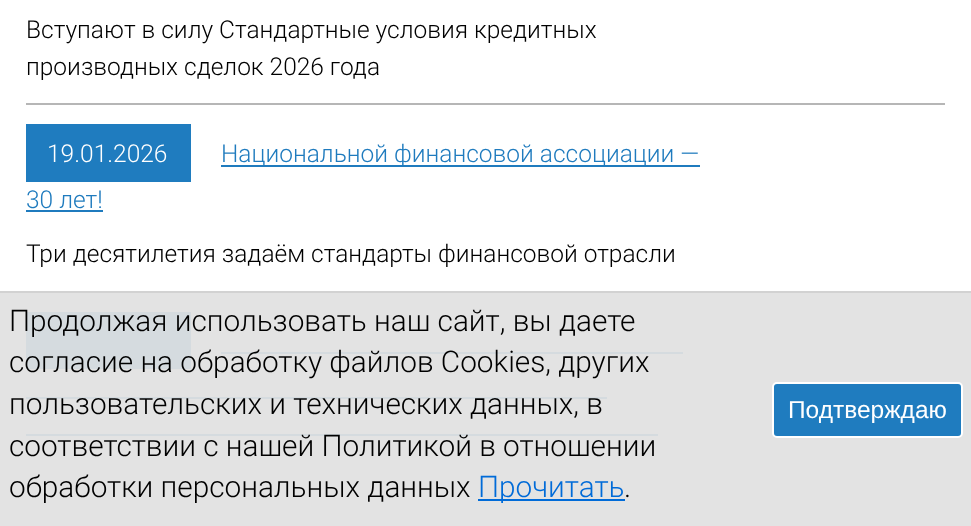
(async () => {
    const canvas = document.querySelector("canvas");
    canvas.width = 971;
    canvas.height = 526;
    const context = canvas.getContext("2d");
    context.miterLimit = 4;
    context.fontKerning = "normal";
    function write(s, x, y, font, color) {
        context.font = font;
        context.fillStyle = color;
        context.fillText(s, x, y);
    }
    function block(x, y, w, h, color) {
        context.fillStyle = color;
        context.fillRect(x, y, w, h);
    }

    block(0, 0, 971, 526, "rgb(255, 255, 255)");
    block(0, 293, 971, 233, "rgb(227, 227, 227)");
    write("Вступают в силу Стандартные условия кредитных", 26, 38, "300 24.5px Roboto", "rgb(0, 0, 0)");
    write("производных сделок 2026 года", 26, 75, "300 24.5px Roboto", "rgb(0, 0, 0)");
    block(26, 103, 919, 2, "rgb(182, 182, 182)");
    block(26, 124, 165, 58, "rgb(31, 124, 191)");
    write("19.01.2026", 47, 162, "300 24.5px Roboto", "rgb(255, 255, 255)");
    block(221, 165, 479, 2, "rgb(31, 123, 190)");
    write("Национальной финансовой ассоциации —", 221, 162, "300 24.5px Roboto", "rgb(31, 123, 190)");
    write("30 лет!", 26, 208, "300 24.5px Roboto", "rgb(31, 123, 190)");
    block(26, 210, 77, 2, "rgb(31, 123, 190)");
    write("Три десятилетия задаём стандарты финансовой отрасли", 26, 262, "300 24.5px Roboto", "rgb(0, 0, 0)");
    block(26, 312, 165, 57, "rgb(213, 219, 223)");
    block(221, 352, 462, 2, "rgb(213, 219, 223)");
    block(26, 397, 581, 2, "rgb(213, 219, 223)");
    block(26, 434, 632, 2, "rgb(213, 219, 223)");
    block(0, 291, 971, 2, "rgb(210, 210, 210)");
    write("Продолжая использовать наш сайт, вы даете", 9, 331, "300 29.75px Roboto", "rgb(0, 0, 0)");
    write("согласие на обработку файлов Cookies, других", 9, 372, "300 29.75px Roboto", "rgb(0, 0, 0)");
    write("пользовательских и технических данных, в", 9, 414, "300 29.75px Roboto", "rgb(0, 0, 0)");
    write("соответствии с нашей Политикой в отношении", 9, 456, "300 29.75px Roboto", "rgb(0, 0, 0)");
    write("обработки персональных данных", 9, 497, "300 29.75px Roboto", "rgb(0, 0, 0)");
    block(478, 499, 147, 2, "rgb(0, 107, 216)");
    write("Прочитать", 478, 497, "300 29.75px Roboto", "rgb(0, 107, 216)");
    write(".", 624, 497, "300 29.75px Roboto", "rgb(0, 0, 0)");
    context.fillStyle = "rgb(31, 124, 191)";
    context.beginPath();
    context.roundRect(773, 383, 189, 54, 4);
    context.fill();
    context.strokeStyle = "rgb(255, 255, 255)";
    context.lineWidth = 2;
    context.stroke();
    write("Подтверждаю", 788, 418, "24.5px Liberation Sans", "rgb(255, 255, 255)");
})();
